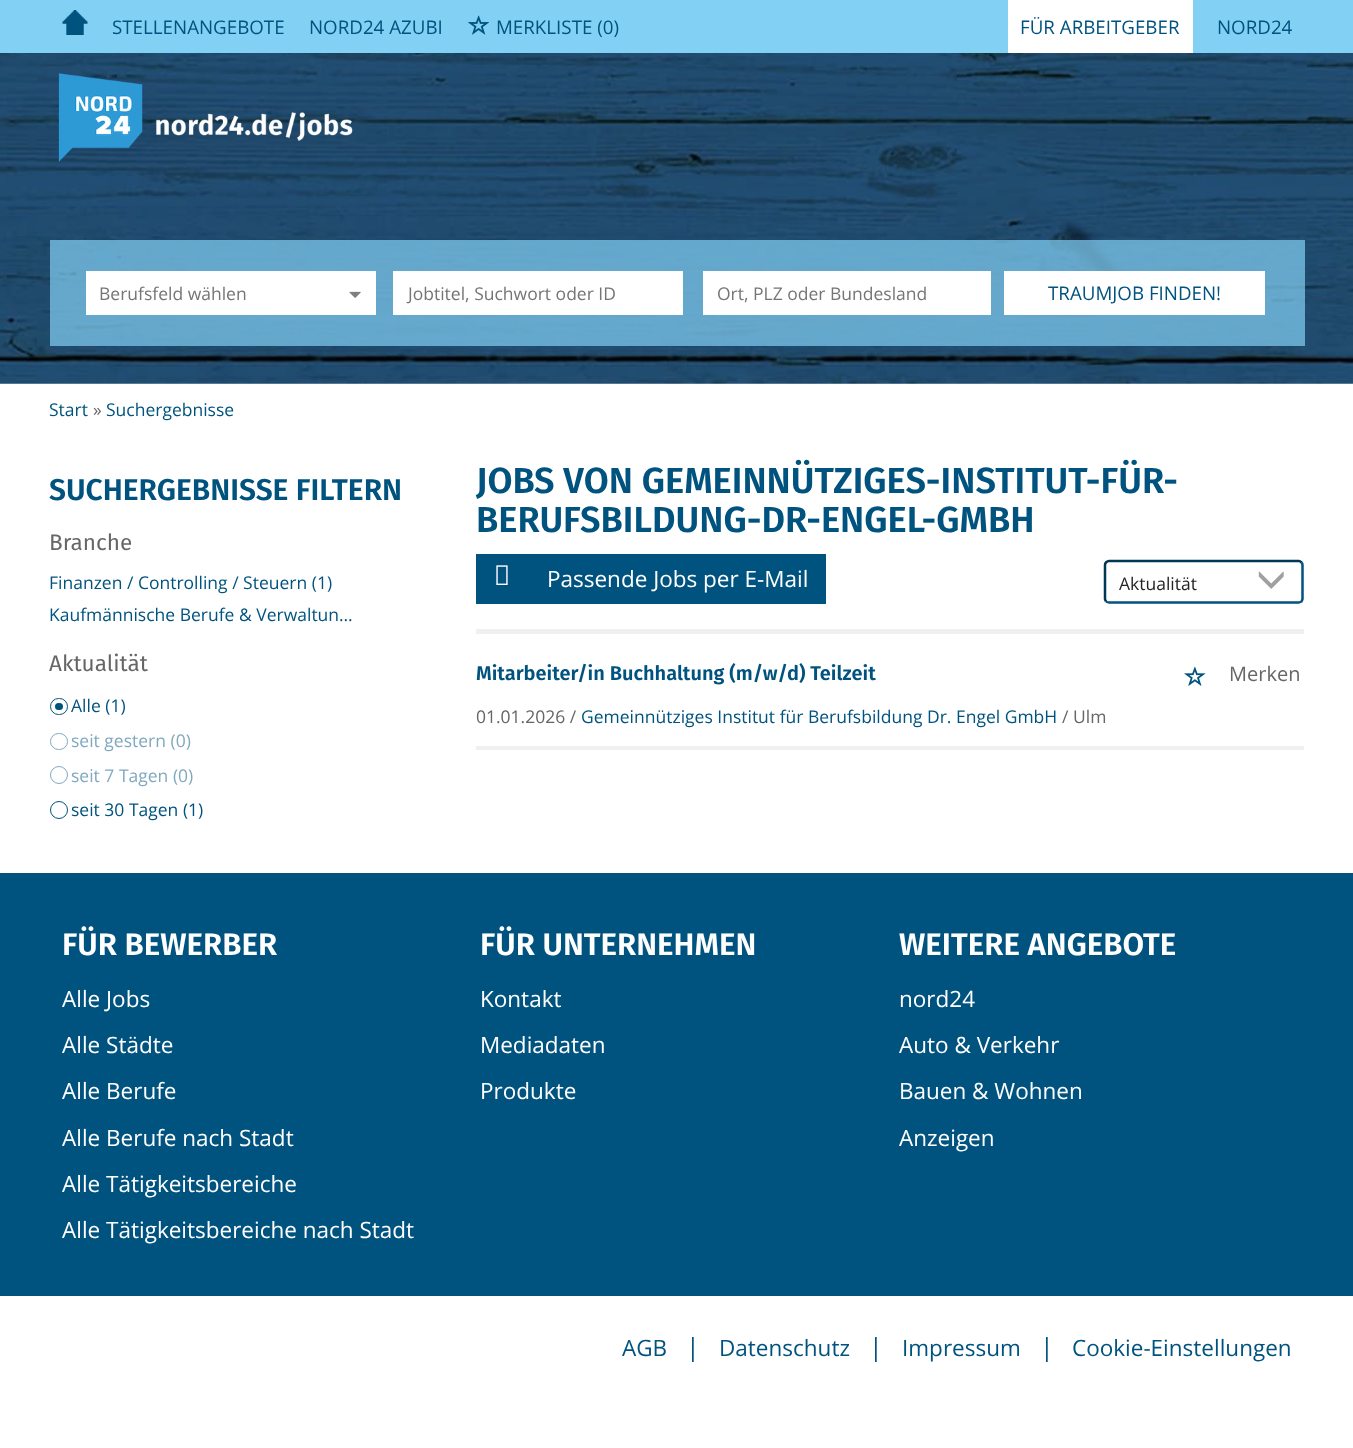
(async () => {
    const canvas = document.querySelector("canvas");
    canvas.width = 1353;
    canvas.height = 1448;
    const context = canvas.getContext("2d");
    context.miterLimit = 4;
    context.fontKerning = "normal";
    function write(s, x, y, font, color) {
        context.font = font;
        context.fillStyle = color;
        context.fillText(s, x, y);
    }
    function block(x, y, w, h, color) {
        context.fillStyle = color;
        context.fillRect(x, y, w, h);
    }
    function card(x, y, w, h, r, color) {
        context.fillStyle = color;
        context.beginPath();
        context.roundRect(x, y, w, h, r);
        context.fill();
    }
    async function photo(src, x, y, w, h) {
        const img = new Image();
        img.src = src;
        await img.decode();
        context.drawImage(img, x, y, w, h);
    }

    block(0, 0, 1353, 1448, "rgb(255, 255, 255)");
    block(0, 0, 1353, 53, "rgb(131, 208, 245)");
    await photo("media/1.png", 62, 10, 26, 25);
    write("STELLENANGEBOTE", 112, 34, "18.75px Open Sans", "rgb(0, 83, 127)");
    write("NORD24 AZUBI", 309, 34, "18.75px Open Sans", "rgb(0, 83, 127)");
    await photo("media/2.png", 468, 15, 21, 20);
    write("MERKLISTE (0)", 496, 34, "18.75px Open Sans", "rgb(0, 83, 127)");
    block(1008, 0, 185, 53, "rgb(255, 255, 255)");
    write("FÜR ARBEITGEBER", 1020, 34, "18.75px Open Sans", "rgb(0, 83, 127)");
    write("NORD24", 1217, 34, "18.75px Open Sans", "rgb(0, 83, 127)");
    await photo("media/3.png", 0, 53, 1353, 331);
    await photo("media/4.png", 58, 73, 295, 89);
    block(50, 240, 1255, 106, "rgba(131, 208, 245, 0.7)");
    block(86, 271, 290, 44, "rgb(255, 255, 255)");
    write("Berufsfeld wählen", 99, 300, "17.5px Open Sans", "rgb(117, 117, 117)");
    await photo("media/5.png", 349, 291, 12, 7);
    block(393, 271, 290, 44, "rgb(255, 255, 255)");
    write("Jobtitel, Suchwort oder ID", 408, 300, "17.5px Open Sans", "rgb(117, 117, 117)");
    block(703, 271, 288, 44, "rgb(255, 255, 255)");
    write("Ort, PLZ oder Bundesland", 717, 300, "17.5px Open Sans", "rgb(117, 117, 117)");
    block(1004, 271, 261, 44, "rgb(255, 255, 255)");
    write("TRAUMJOB FINDEN!", 1048, 300, "18.75px Open Sans", "rgb(0, 83, 127)");
    write("Start", 49, 416, "17.5px Open Sans", "rgb(0, 83, 127)");
    write("»", 93, 416, "17.5px Open Sans", "rgb(102, 102, 102)");
    write("Suchergebnisse", 106, 416, "17.5px Open Sans", "rgb(0, 83, 127)");
    write("SUCHERGEBNISSE FILTERN", 49, 500, "600 30px Fira Sans", "rgb(0, 83, 127)");
    write("Branche", 49, 550, "22.5px Fira Sans", "rgb(102, 102, 102)");
    write("Finanzen / Controlling / Steuern (1)", 49, 589, "17.5px Open Sans", "rgb(0, 83, 127)");
    write("Kaufmännische Berufe & Verwaltun…", 49, 621, "17.5px Open Sans", "rgb(0, 83, 127)");
    write("Aktualität", 49, 671, "22.5px Fira Sans", "rgb(102, 102, 102)");
    card(55, 703, 8, 7, 3.5, "rgb(0, 83, 127)");
    context.beginPath();
    context.roundRect(50.5, 698.5, 17, 16, 8);
    context.strokeStyle = "rgb(0, 83, 127)";
    context.stroke();
    write("Alle (1)", 71, 712, "17.5px Open Sans", "rgb(0, 83, 127)");
    context.beginPath();
    context.roundRect(50.5, 733.5, 17, 16, 8);
    context.strokeStyle = "rgb(128, 169, 191)";
    context.stroke();
    write("seit gestern (0)", 71, 747, "17.5px Open Sans", "rgb(128, 169, 191)");
    context.beginPath();
    context.arc(59, 775, 8.5, 0, Math.PI * 2);
    context.stroke();
    write("seit 7 Tagen (0)", 71, 782, "17.5px Open Sans", "rgb(128, 169, 191)");
    context.beginPath();
    context.arc(59, 810, 8.5, 0, Math.PI * 2);
    context.strokeStyle = "rgb(0, 83, 127)";
    context.stroke();
    write("seit 30 Tagen (1)", 71, 816, "17.5px Open Sans", "rgb(0, 83, 127)");
    write("JOBS VON GEMEINNÜTZIGES-INSTITUT-FÜR-", 476, 493, "600 36.25px Fira Sans", "rgb(0, 83, 127)");
    write("BERUFSBILDUNG-DR-ENGEL-GMBH", 476, 532, "600 36.25px Fira Sans", "rgb(0, 83, 127)");
    block(476, 554, 350, 50, "rgb(0, 83, 127)");
    await photo("media/6.png", 496, 565, 12, 20);
    write("Passende Jobs per E-Mail", 547, 587, "22.5px Open Sans", "rgb(255, 255, 255)");
    context.beginPath();
    context.moveTo(1301.5, 562.5);
    context.bezierCurveTo(1302, 563, 1302.5, 564, 1302.5, 565);
    context.lineTo(1302.5, 599);
    context.bezierCurveTo(1302.5, 599.5, 1302, 600.5, 1301.5, 601.5);
    context.bezierCurveTo(1300.5, 602, 1299.5, 602.5, 1299, 602.5);
    context.lineTo(1109, 602.5);
    context.bezierCurveTo(1108, 602.5, 1107, 602, 1106, 601.5);
    context.lineWidth = 2.5;
    context.stroke();
    context.beginPath();
    context.moveTo(1106, 601.5);
    context.bezierCurveTo(1105.5, 600.5, 1105, 599.5, 1105, 599);
    context.lineTo(1105, 565);
    context.bezierCurveTo(1105, 564, 1105.5, 563, 1106, 562.5);
    context.bezierCurveTo(1107, 561.5, 1108, 561, 1109, 561);
    context.lineTo(1299, 561);
    context.bezierCurveTo(1299.5, 561, 1300.5, 561.5, 1301.5, 562.5);
    context.strokeStyle = "rgb(0, 55, 85)";
    context.stroke();
    write("Aktualität", 1119, 590, "17.5px Open Sans", "rgb(36, 36, 36)");
    await photo("media/7.png", 1258, 571, 26, 18);
    block(476, 629, 828, 5, "rgb(240, 240, 240)");
    write("Mitarbeiter/in Buchhaltung (m/w/d) Teilzeit", 476, 680, "600 20px Fira Sans", "rgb(0, 83, 127)");
    await photo("media/8.png", 1184, 666, 22, 20);
    write("Merken", 1229, 681, "20px Open Sans", "rgb(102, 102, 102)");
    write("01.01.2026 /", 476, 723, "17.5px Open Sans", "rgb(102, 102, 102)");
    write("Gemeinnütziges Institut für Berufsbildung Dr. Engel GmbH", 581, 723, "17.5px Open Sans", "rgb(0, 83, 127)");
    write("/ Ulm", 1062, 723, "17.5px Open Sans", "rgb(102, 102, 102)");
    block(476, 746, 828, 4, "rgb(240, 240, 240)");
    block(0, 873, 1353, 423, "rgb(0, 83, 127)");
    write("FÜR BEWERBER", 62, 955, "600 31.25px Fira Sans", "rgb(255, 255, 255)");
    write("Alle Jobs", 62, 1007, "22.5px Open Sans", "rgb(255, 255, 255)");
    write("Alle Städte", 62, 1053, "22.5px Open Sans", "rgb(255, 255, 255)");
    write("Alle Berufe", 62, 1099, "22.5px Open Sans", "rgb(255, 255, 255)");
    write("Alle Berufe nach Stadt", 62, 1146, "22.5px Open Sans", "rgb(255, 255, 255)");
    write("Alle Tätigkeitsbereiche", 62, 1192, "22.5px Open Sans", "rgb(255, 255, 255)");
    write("Alle Tätigkeitsbereiche nach Stadt", 62, 1238, "22.5px Open Sans", "rgb(255, 255, 255)");
    write("FÜR UNTERNEHMEN", 480, 955, "600 31.25px Fira Sans", "rgb(255, 255, 255)");
    write("Kontakt", 480, 1007, "22.5px Open Sans", "rgb(255, 255, 255)");
    write("Mediadaten", 480, 1053, "22.5px Open Sans", "rgb(255, 255, 255)");
    write("Produkte", 480, 1099, "22.5px Open Sans", "rgb(255, 255, 255)");
    write("WEITERE ANGEBOTE", 899, 955, "600 31.25px Fira Sans", "rgb(255, 255, 255)");
    write("nord24", 899, 1007, "22.5px Open Sans", "rgb(255, 255, 255)");
    write("Auto & Verkehr", 899, 1053, "22.5px Open Sans", "rgb(255, 255, 255)");
    write("Bauen & Wohnen", 899, 1099, "22.5px Open Sans", "rgb(255, 255, 255)");
    write("Anzeigen", 899, 1146, "22.5px Open Sans", "rgb(255, 255, 255)");
    write("AGB", 622, 1356, "22.5px Open Sans", "rgb(0, 83, 127)");
    write("|", 686, 1356, "25px Open Sans", "rgb(0, 83, 127)");
    write("Datenschutz", 719, 1356, "22.5px Open Sans", "rgb(0, 83, 127)");
    write("|", 869, 1356, "25px Open Sans", "rgb(0, 83, 127)");
    write("Impressum", 902, 1356, "22.5px Open Sans", "rgb(0, 83, 127)");
    write("|", 1040, 1356, "25px Open Sans", "rgb(0, 83, 127)");
    write("Cookie-Einstellungen", 1072, 1356, "22.5px Open Sans", "rgb(0, 83, 127)");
})();
